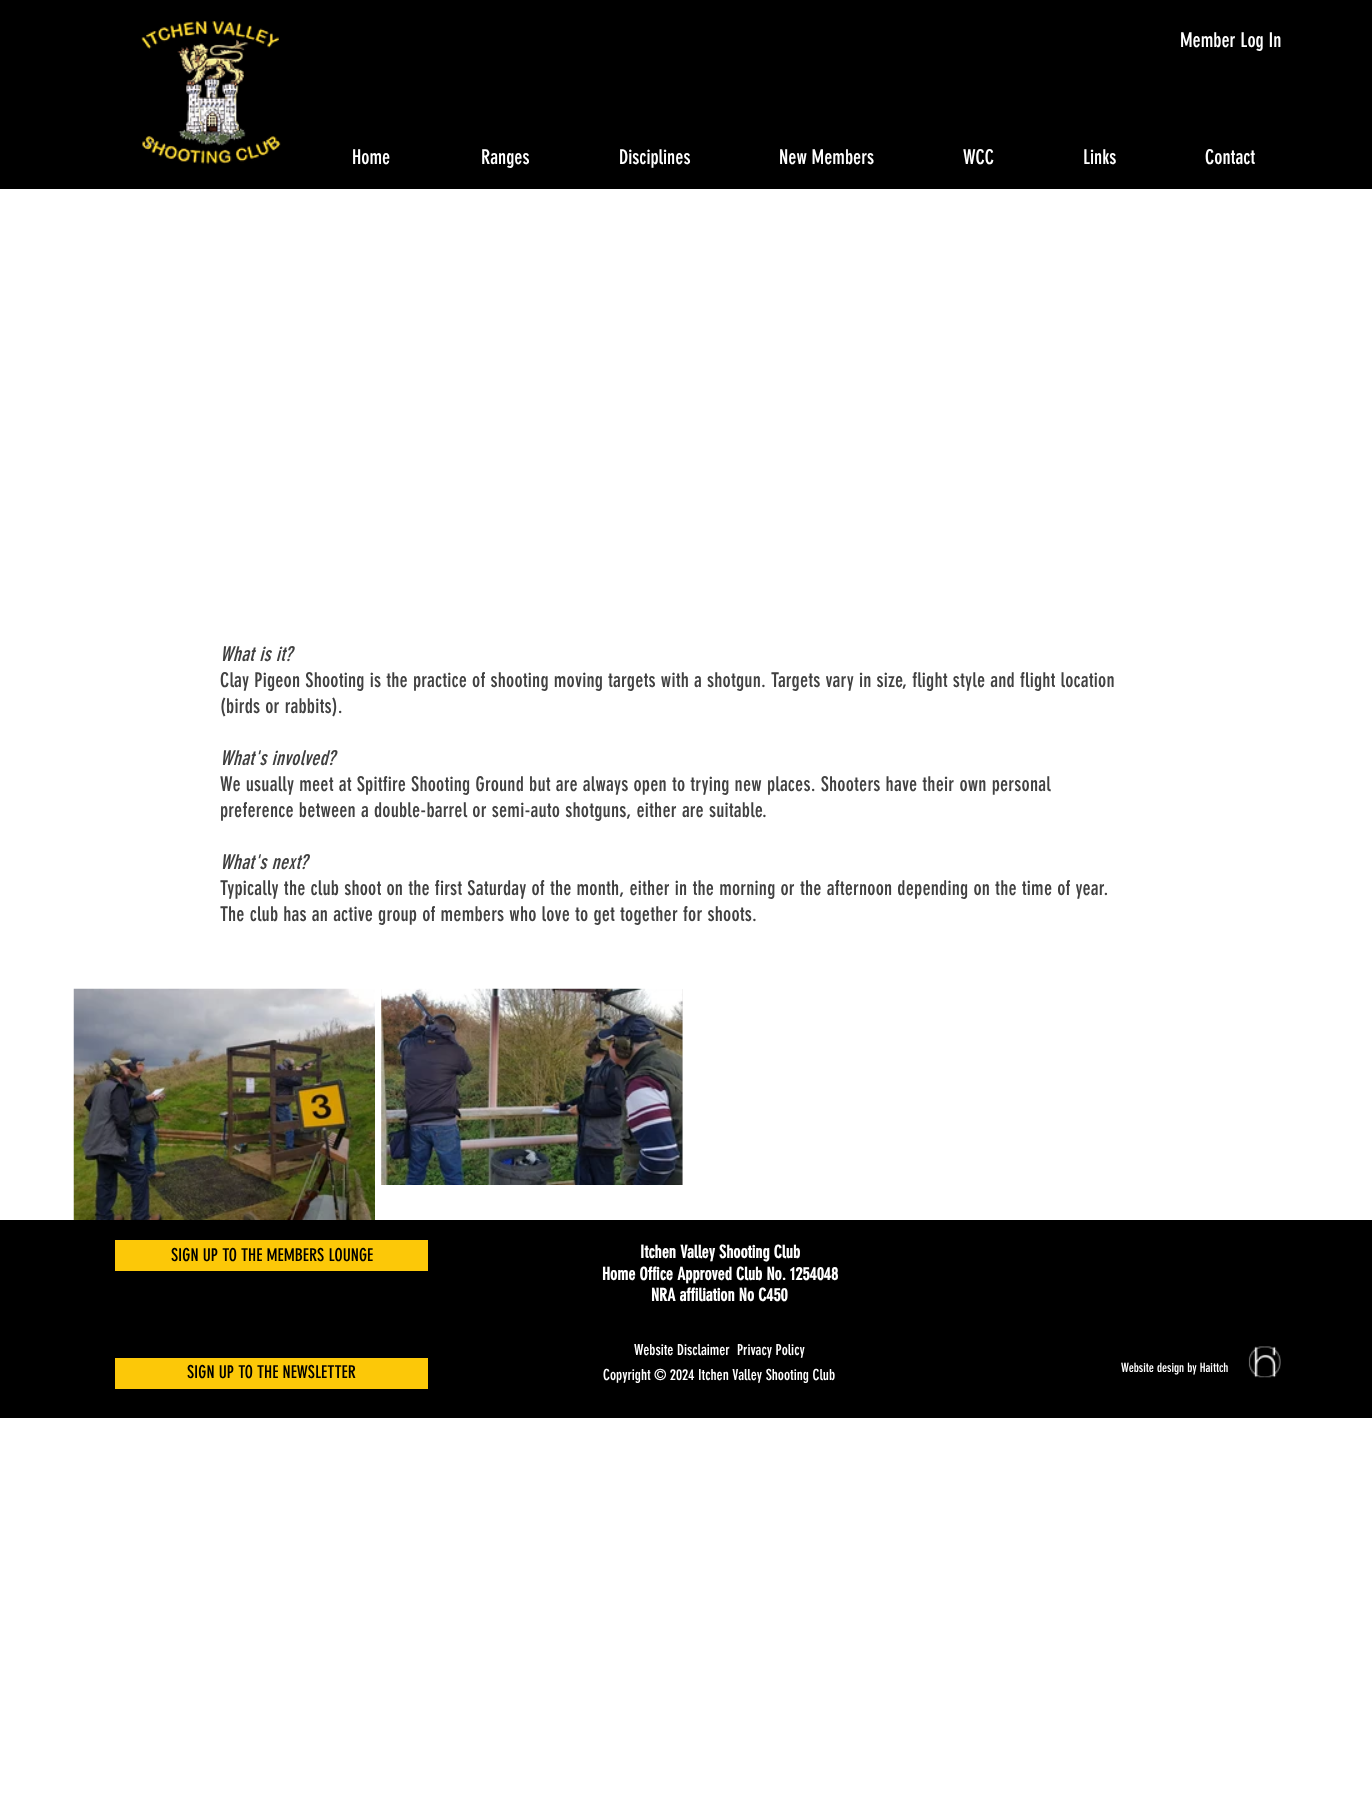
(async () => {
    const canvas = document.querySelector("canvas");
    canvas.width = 1372;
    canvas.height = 1820;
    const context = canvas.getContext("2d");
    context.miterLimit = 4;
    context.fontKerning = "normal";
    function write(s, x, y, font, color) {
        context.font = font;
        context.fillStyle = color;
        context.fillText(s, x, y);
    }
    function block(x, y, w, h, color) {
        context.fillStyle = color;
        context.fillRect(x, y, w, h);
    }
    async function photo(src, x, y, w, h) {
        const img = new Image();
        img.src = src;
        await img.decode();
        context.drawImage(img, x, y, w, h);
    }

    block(0, 0, 1372, 1820, "rgb(255, 255, 255)");
    block(0, 0, 1372, 189, "rgb(0, 0, 0)");
    await photo("media/1.png", 141, 21, 140, 143);
    write("Member Log In", 1180, 47, "20px 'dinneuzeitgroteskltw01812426'", "rgb(255, 255, 255)");
    write("Home", 352, 164, "20px 'dinneuzeitgroteskltw01812426'", "rgb(255, 255, 255)");
    write("Ranges", 481, 164, "20px 'dinneuzeitgroteskltw01812426'", "rgb(255, 255, 255)");
    write("Disciplines", 619, 164, "20px 'dinneuzeitgroteskltw01812426'", "rgb(255, 255, 255)");
    write("New Members", 779, 164, "20px 'dinneuzeitgroteskltw01812426'", "rgb(255, 255, 255)");
    write("WCC", 963, 164, "20px 'dinneuzeitgroteskltw01812426'", "rgb(255, 255, 255)");
    write("Links", 1083, 164, "20px 'dinneuzeitgroteskltw01812426'", "rgb(255, 255, 255)");
    write("Contact", 1205, 164, "20px 'dinneuzeitgroteskltw01812426'", "rgb(255, 255, 255)");
    context.letterSpacing = "0.2px";
    write("What is it?", 220, 661, "italic 20px 'dinneuzeitgroteskltw01812426'", "rgb(65, 65, 65)");
    write("Clay Pigeon Shooting is the practice of shooting moving targets with a shotgun. Targets vary in size, flight style and flight location", 220, 687, "20px 'dinneuzeitgroteskltw01812426'", "rgb(65, 65, 65)");
    write("(birds or rabbits).", 220, 713, "20px 'dinneuzeitgroteskltw01812426'", "rgb(65, 65, 65)");
    write("What's involved?", 220, 765, "italic 20px 'dinneuzeitgroteskltw01812426'", "rgb(65, 65, 65)");
    write("We usually meet at Spitfire Shooting Ground but are always open to trying new places. Shooters have their own personal", 220, 791, "20px 'dinneuzeitgroteskltw01812426'", "rgb(65, 65, 65)");
    write("preference between a double-barrel or semi-auto shotguns, either are suitable.", 220, 817, "20px 'dinneuzeitgroteskltw01812426'", "rgb(65, 65, 65)");
    write("What's next?", 220, 869, "italic 20px 'dinneuzeitgroteskltw01812426'", "rgb(65, 65, 65)");
    write("Typically the club shoot on the first Saturday of the month, either in the morning or the afternoon depending on the time of year.", 220, 895, "20px 'dinneuzeitgroteskltw01812426'", "rgb(65, 65, 65)");
    write("The club has an active group of members who love to get together for shoots.", 220, 921, "20px 'dinneuzeitgroteskltw01812426'", "rgb(65, 65, 65)");
    await photo("media/2.png", 73, 988, 302, 232);
    block(381, 989, 302, 196, "rgb(232, 230, 230)");
    await photo("media/3.png", 381, 988, 302, 197);
    block(0, 1220, 1372, 198, "rgb(0, 0, 0)");
    block(115, 1240, 313, 31, "rgb(252, 200, 8)");
    context.letterSpacing = "0px";
    write("SIGN UP TO THE MEMBERS LOUNGE", 171, 1261, "17.5px 'dinneuzeitgroteskltw01812426'", "rgb(0, 0, 0)");
    write("Itchen Valley Shooting Club", 640, 1258, "bold 17.5px 'dinneuzeitgroteskltw01812426'", "rgb(255, 255, 255)");
    write("Home Office Approved Club No. 1254048", 602, 1280, "bold 17.5px 'dinneuzeitgroteskltw01812426'", "rgb(255, 255, 255)");
    write("NRA affiliation No C450", 651, 1301, "bold 17.5px 'dinneuzeitgroteskltw01812426'", "rgb(255, 255, 255)");
    block(115, 1358, 313, 31, "rgb(252, 200, 8)");
    write("SIGN UP TO THE NEWSLETTER", 187, 1378, "17.5px 'dinneuzeitgroteskltw01812426'", "rgb(0, 0, 0)");
    write("Website Disclaimer", 634, 1355, "15px 'dinneuzeitgroteskltw01812426'", "rgb(255, 255, 255)");
    write("Privacy Policy", 737, 1355, "15px 'dinneuzeitgroteskltw01812426'", "rgb(255, 255, 255)");
    write("Website design by Haittch", 1121, 1372, "12.5px 'dinneuzeitgroteskltw01812426'", "rgb(255, 255, 255)");
    await photo("media/4.png", 1248, 1346, 33, 32);
    write("Copyright © 2024 Itchen Valley Shooting Club", 603, 1380, "15px 'dinneuzeitgroteskltw01812426'", "rgb(255, 255, 255)");
})();
